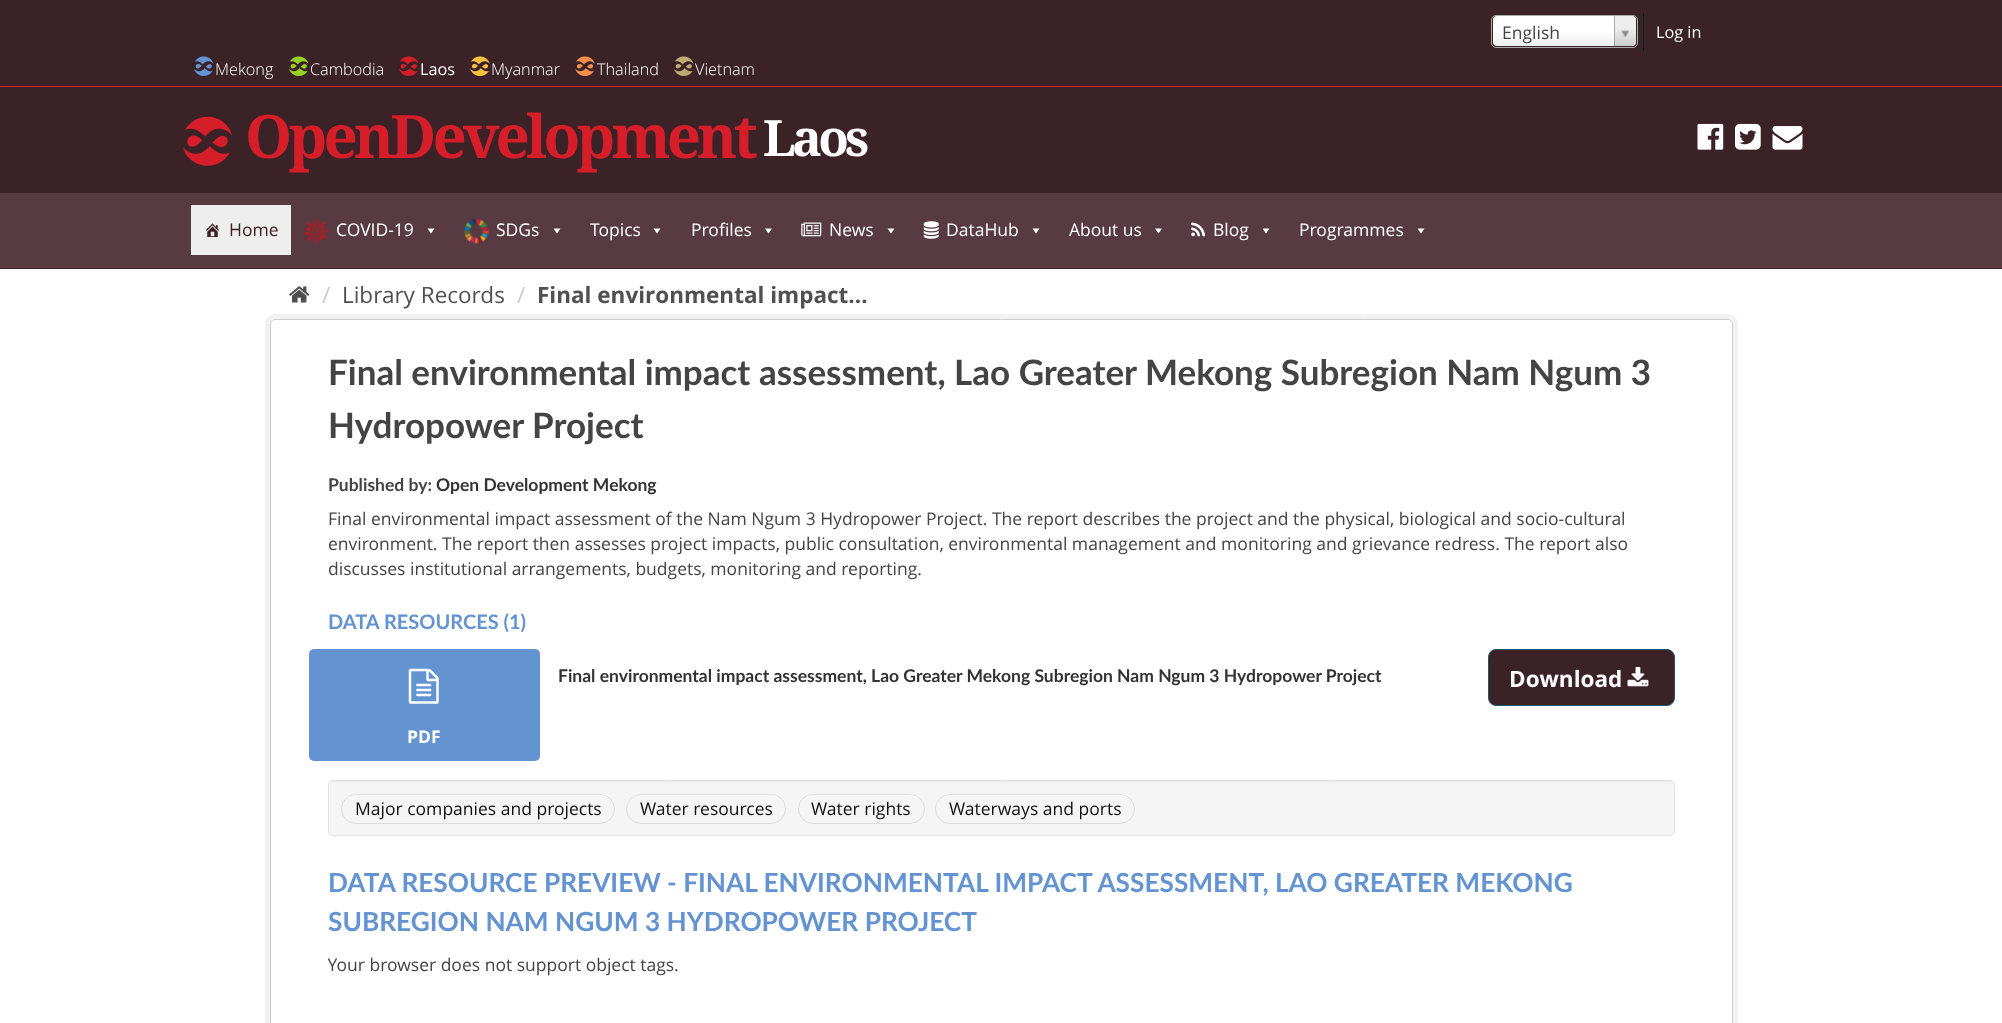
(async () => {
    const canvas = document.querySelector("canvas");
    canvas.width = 2002;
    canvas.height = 1023;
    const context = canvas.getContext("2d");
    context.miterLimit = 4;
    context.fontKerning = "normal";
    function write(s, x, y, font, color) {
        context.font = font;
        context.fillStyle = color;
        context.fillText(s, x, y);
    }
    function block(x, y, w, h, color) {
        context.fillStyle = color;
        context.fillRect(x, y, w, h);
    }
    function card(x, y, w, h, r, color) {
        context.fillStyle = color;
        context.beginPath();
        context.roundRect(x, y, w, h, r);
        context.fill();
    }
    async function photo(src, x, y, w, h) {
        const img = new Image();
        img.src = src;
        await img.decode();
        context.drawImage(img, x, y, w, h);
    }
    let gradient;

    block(0, 0, 2002, 1023, "rgb(255, 255, 255)");
    block(0, 0, 2002, 269, "rgb(59, 34, 38)");
    gradient = context.createLinearGradient(1564, 46, 1564, 16);
    gradient.addColorStop(0, "rgb(238, 238, 238)");
    gradient.addColorStop(0.5, "rgb(255, 255, 255)");
    context.fillStyle = gradient;
    context.beginPath();
    context.roundRect(1493, 16, 143, 30, 4);
    context.fill();
    context.beginPath();
    context.roundRect(1491.5, 15.5, 146, 32, 4.5);
    context.strokeStyle = "rgb(170, 170, 170)";
    context.stroke();
    write("English", 1502, 39, "17.5px Open Sans", "rgb(68, 68, 68)");
    context.save();
    context.beginPath();
    context.roundRect(1493, 16, 143, 30, 4);
    context.clip();
    gradient = context.createLinearGradient(1626, 46, 1626, 16);
    gradient.addColorStop(0, "rgb(204, 204, 204)");
    gradient.addColorStop(0.6, "rgb(238, 238, 238)");
    context.fillStyle = gradient;
    context.beginPath();
    context.roundRect(1614, 16, 22, 30, [0, 5, 5, 0]);
    context.fill();
    context.restore();
    block(1614, 16, 1, 30, "rgb(170, 170, 170)");
    await photo("media/1.png", 1621, 30, 9, 8);
    block(1643, 13, 1, 38, "rgb(0, 35, 46)");
    write("Log in", 1656, 38, "16.25px Open Sans", "rgb(255, 255, 255)");
    await photo("media/2.png", 194, 56, 20, 20);
    write("Mekong", 215, 75, "300 16.25px Open Sans", "rgb(255, 255, 255)");
    await photo("media/3.png", 289, 56, 20, 20);
    write("Cambodia", 310, 75, "300 16.25px Open Sans", "rgb(255, 255, 255)");
    await photo("media/4.png", 399, 56, 20, 20);
    write("Laos", 420, 75, "16.25px Open Sans", "rgb(255, 255, 255)");
    await photo("media/5.png", 470, 56, 20, 20);
    write("Myanmar", 491, 75, "300 16.25px Open Sans", "rgb(255, 255, 255)");
    await photo("media/6.png", 575, 56, 20, 20);
    write("Thailand", 597, 75, "300 16.25px Open Sans", "rgb(255, 255, 255)");
    await photo("media/7.png", 674, 56, 20, 20);
    write("Vietnam", 695, 75, "300 16.25px Open Sans", "rgb(255, 255, 255)");
    block(0, 86, 2002, 1, "rgb(214, 30, 42)");
    await photo("media/8.png", 183, 116, 49, 50);
    context.letterSpacing = "-3.75px";
    write("OpenDevelopment", 245, 158, "bold 60px Droid Serif", "rgb(214, 30, 42)");
    write("Laos", 763, 156, "bold 50px Droid Serif", "rgb(255, 255, 255)");
    await photo("media/9.png", 1697, 123, 27, 27);
    await photo("media/10.png", 1735, 123, 26, 27);
    await photo("media/11.png", 1772, 126, 31, 24);
    block(0, 193, 2002, 75, "rgb(88, 58, 67)");
    block(191, 205, 100, 50, "rgb(238, 238, 238)");
    await photo("media/12.png", 206, 223, 13, 14);
    context.letterSpacing = "0px";
    write("Home", 229, 236, "17.5px Open Sans", "rgb(59, 34, 38)");
    await photo("media/13.png", 303, 218, 26, 26);
    write("COVID-19", 336, 236, "17.5px Open Sans", "rgb(255, 255, 255)");
    context.beginPath();
    context.moveTo(434.5, 228.5);
    context.lineTo(431, 233.5);
    context.lineTo(427.5, 228.5);
    context.closePath();
    context.fill();
    await photo("media/14.png", 463, 218, 26, 26);
    write("SDGs", 496, 236, "17.5px Open Sans", "rgb(255, 255, 255)");
    context.beginPath();
    context.moveTo(560.5, 228.5);
    context.lineTo(557, 233.5);
    context.lineTo(553.5, 228.5);
    context.closePath();
    context.fill();
    write("Topics", 590, 236, "17.5px Open Sans", "rgb(255, 255, 255)");
    context.beginPath();
    context.moveTo(660.5, 228.5);
    context.lineTo(657, 233.5);
    context.lineTo(653.5, 228.5);
    context.closePath();
    context.fill();
    write("Profiles", 691, 236, "17.5px Open Sans", "rgb(255, 255, 255)");
    context.beginPath();
    context.moveTo(772, 228.5);
    context.lineTo(768.5, 233.5);
    context.lineTo(765, 228.5);
    context.closePath();
    context.fill();
    await photo("media/15.png", 801, 222, 21, 15);
    write("News", 829, 236, "17.5px Open Sans", "rgb(255, 255, 255)");
    context.beginPath();
    context.moveTo(894.5, 228.5);
    context.lineTo(891, 233.5);
    context.lineTo(887.5, 228.5);
    context.closePath();
    context.fill();
    await photo("media/16.png", 923, 221, 16, 18);
    write("DataHub", 946, 236, "17.5px Open Sans", "rgb(255, 255, 255)");
    context.beginPath();
    context.moveTo(1039.5, 228.5);
    context.lineTo(1036, 233.5);
    context.lineTo(1032.5, 228.5);
    context.closePath();
    context.fill();
    write("About us", 1069, 236, "17.5px Open Sans", "rgb(255, 255, 255)");
    context.beginPath();
    context.moveTo(1162, 228.5);
    context.lineTo(1158.5, 233.5);
    context.lineTo(1155, 228.5);
    context.closePath();
    context.fill();
    await photo("media/17.png", 1191, 222, 14, 15);
    write("Blog", 1213, 236, "17.5px Open Sans", "rgb(255, 255, 255)");
    context.beginPath();
    context.moveTo(1269.5, 228.5);
    context.lineTo(1266, 233.5);
    context.lineTo(1262.5, 228.5);
    context.closePath();
    context.fill();
    write("Programmes", 1299, 236, "17.5px Open Sans", "rgb(255, 255, 255)");
    context.beginPath();
    context.moveTo(1424.5, 228.5);
    context.lineTo(1421, 233.5);
    context.lineTo(1417.5, 228.5);
    context.closePath();
    context.fill();
    await photo("media/18.png", 289, 286, 21, 17);
    write("/", 322, 303, "22.5px Open Sans", "rgb(204, 204, 204)");
    write("Library Records", 342, 303, "22.5px Open Sans", "rgb(80, 80, 80)");
    write("/", 517, 303, "22.5px Open Sans", "rgb(204, 204, 204)");
    write("Final environmental impact...", 537, 303, "bold 22.5px Open Sans", "rgb(80, 80, 80)");
    context.beginPath();
    context.roundRect(267.5, 316.5, 1468, 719, 7.5);
    context.strokeStyle = "rgb(242, 242, 242)";
    context.lineWidth = 5;
    context.stroke();
    context.fillStyle = "rgb(255, 255, 255)";
    context.beginPath();
    context.roundRect(270.5, 319.5, 1462, 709, 4.5);
    context.fill();
    context.strokeStyle = "rgb(204, 204, 204)";
    context.lineWidth = 1;
    context.stroke();
    write("Final environmental impact assessment, Lao Greater Mekong Subregion Nam Ngum 3", 328, 385, "bold 35px Lato", "rgb(68, 68, 68)");
    write("Hydropower Project", 328, 438, "bold 35px Lato", "rgb(68, 68, 68)");
    write("Published by:", 328, 491, "bold 17.5px Lato", "rgb(68, 68, 68)");
    write("Open Development Mekong", 436, 491, "bold 17.5px Lato", "rgb(51, 51, 51)");
    write("Final environmental impact assessment of the Nam Ngum 3 Hydropower Project. The report describes the project and the physical, biological and socio-cultural", 328, 525, "17.5px Open Sans", "rgb(68, 68, 68)");
    write("environment. The report then assesses project impacts, public consultation, environmental management and monitoring and grievance redress. The report also", 328, 550, "17.5px Open Sans", "rgb(68, 68, 68)");
    write("discusses institutional arrangements, budgets, monitoring and reporting.", 328, 575, "17.5px Open Sans", "rgb(68, 68, 68)");
    write("DATA RESOURCES (1)", 328, 629, "bold 20px Lato", "rgb(100, 147, 210)");
    write("Final environmental impact assessment, Lao Greater Mekong Subregion Nam Ngum 3 Hydropower Project", 558, 682, "bold 17.5px Lato", "rgb(51, 51, 51)");
    context.fillStyle = "rgb(59, 34, 38)";
    context.beginPath();
    context.roundRect(1488.5, 649.5, 186, 56, 7.5);
    context.fill();
    context.strokeStyle = "rgb(27, 90, 110)";
    context.stroke();
    write("Download", 1509, 687, "bold 22.5px Open Sans", "rgb(255, 255, 255)");
    await photo("media/19.png", 1627, 666, 22, 21);
    card(309, 649, 231, 112, 5, "rgb(100, 147, 210)");
    await photo("media/20.png", 408, 668, 31, 36);
    write("PDF", 407, 743, "bold 17.5px Open Sans", "rgb(255, 255, 255)");
    card(328, 780, 1347, 56, 5, "rgb(245, 245, 245)");
    context.fillStyle = "rgb(233, 233, 233)";
    context.beginPath();
    context.moveTo(332, 782);
    context.lineTo(1670, 782);
    context.bezierCurveTo(1672, 782, 1674, 784, 1674, 786);
    context.lineTo(1674, 785);
    context.bezierCurveTo(1674, 783, 1672, 781, 1670, 781);
    context.lineTo(333, 781);
    context.bezierCurveTo(331, 781, 329, 783, 329, 785);
    context.lineTo(329, 786);
    context.bezierCurveTo(329, 784, 330, 782, 332, 782);
    context.closePath();
    context.fill();
    context.beginPath();
    context.roundRect(328.5, 780.5, 1346, 55, 4.5);
    context.strokeStyle = "rgb(227, 227, 227)";
    context.stroke();
    context.fillStyle = "rgb(255, 255, 255)";
    context.beginPath();
    context.moveTo(356, 796);
    context.lineTo(600, 796);
    context.bezierCurveTo(608, 796, 614, 802, 614, 809);
    context.bezierCurveTo(614, 801, 608, 795, 600, 795);
    context.lineTo(357, 795);
    context.bezierCurveTo(352, 795, 348, 797, 346, 800);
    context.bezierCurveTo(349, 798, 352, 796, 356, 796);
    context.closePath();
    context.fill();
    context.beginPath();
    context.roundRect(341.5, 794.5, 273, 29, 14.5);
    context.strokeStyle = "rgb(221, 221, 221)";
    context.stroke();
    write("Major companies and projects", 355, 815, "17.5px Open Sans", "rgb(17, 17, 17)");
    context.fillStyle = "rgb(255, 255, 255)";
    context.beginPath();
    context.moveTo(641, 796);
    context.lineTo(771, 796);
    context.bezierCurveTo(779, 796, 785, 802, 785, 809);
    context.bezierCurveTo(786, 790, 760, 795, 750, 795);
    context.lineTo(664, 795);
    context.bezierCurveTo(653, 795, 627, 790, 628, 809);
    context.bezierCurveTo(628, 802, 634, 796, 641, 796);
    context.closePath();
    context.fill();
    context.beginPath();
    context.roundRect(626.5, 794.5, 159, 29, 14.5);
    context.stroke();
    write("Water resources", 640, 815, "17.5px Open Sans", "rgb(17, 17, 17)");
    context.fillStyle = "rgb(255, 255, 255)";
    context.beginPath();
    context.moveTo(812, 796);
    context.lineTo(910, 796);
    context.bezierCurveTo(918, 796, 924, 802, 924, 809);
    context.bezierCurveTo(924, 801, 918, 795, 910, 795);
    context.lineTo(813, 795);
    context.bezierCurveTo(805, 795, 799, 801, 799, 809);
    context.bezierCurveTo(799, 802, 805, 796, 812, 796);
    context.closePath();
    context.fill();
    context.beginPath();
    context.roundRect(798.5, 794.5, 126, 29, 14.5);
    context.stroke();
    write("Water rights", 811, 815, "17.5px Open Sans", "rgb(17, 17, 17)");
    context.fillStyle = "rgb(255, 255, 255)";
    context.beginPath();
    context.moveTo(950, 796);
    context.lineTo(1120, 796);
    context.bezierCurveTo(1128, 796, 1134, 802, 1134, 809);
    context.bezierCurveTo(1135, 788, 1101, 795, 1092, 795);
    context.lineTo(978, 795);
    context.bezierCurveTo(969, 795, 935, 788, 936, 809);
    context.bezierCurveTo(936, 802, 942, 796, 950, 796);
    context.closePath();
    context.fill();
    context.beginPath();
    context.roundRect(935.5, 794.5, 199, 29, 14.5);
    context.stroke();
    write("Waterways and ports", 949, 815, "17.5px Open Sans", "rgb(17, 17, 17)");
    write("DATA RESOURCE PREVIEW - FINAL ENVIRONMENTAL IMPACT ASSESSMENT, LAO GREATER MEKONG", 328, 892, "bold 26.25px Lato", "rgb(100, 147, 210)");
    write("SUBREGION NAM NGUM 3 HYDROPOWER PROJECT", 328, 931, "bold 26.25px Lato", "rgb(100, 147, 210)");
    await photo("media/21.png", 327, 957, 351, 19);
})();
